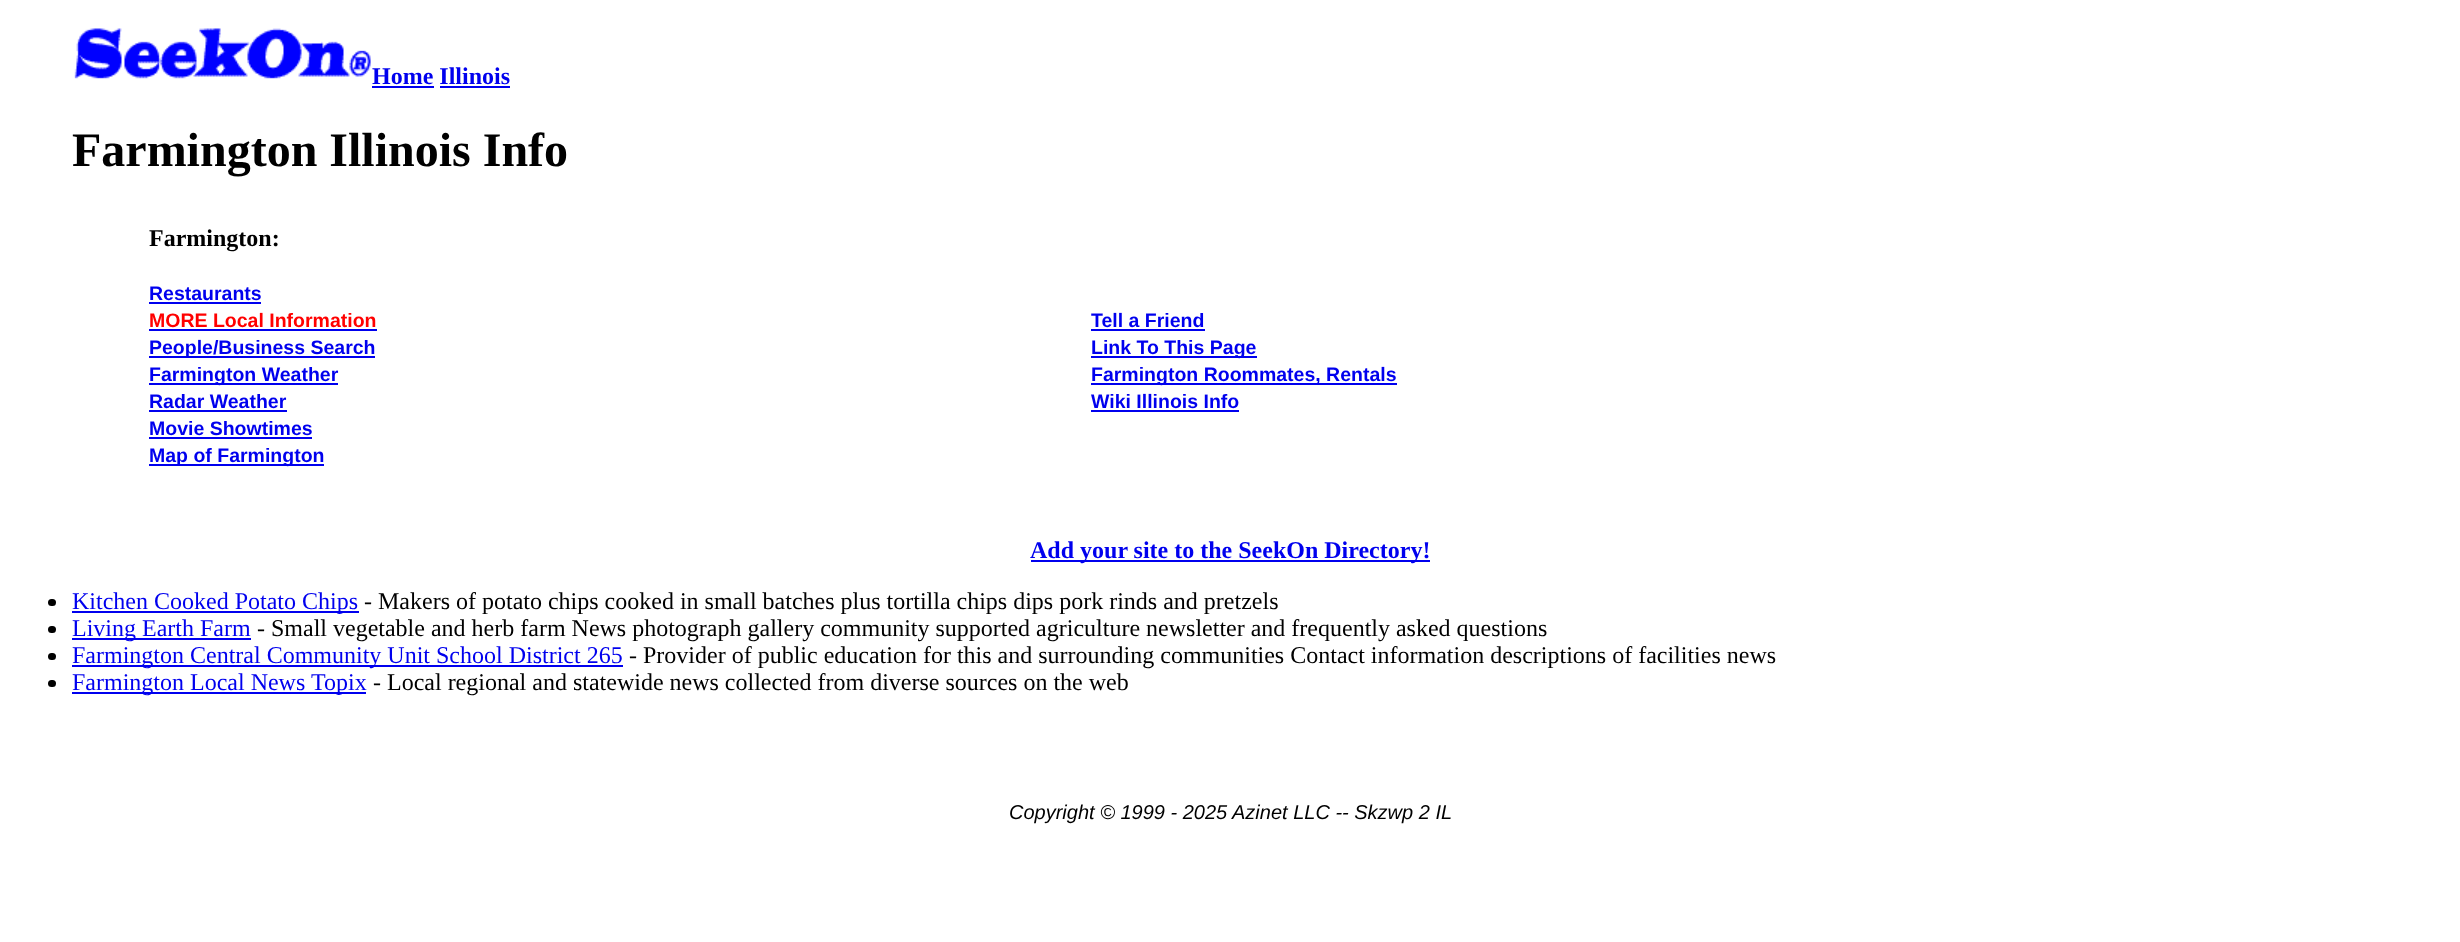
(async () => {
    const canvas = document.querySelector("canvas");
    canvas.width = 2460;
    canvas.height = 942;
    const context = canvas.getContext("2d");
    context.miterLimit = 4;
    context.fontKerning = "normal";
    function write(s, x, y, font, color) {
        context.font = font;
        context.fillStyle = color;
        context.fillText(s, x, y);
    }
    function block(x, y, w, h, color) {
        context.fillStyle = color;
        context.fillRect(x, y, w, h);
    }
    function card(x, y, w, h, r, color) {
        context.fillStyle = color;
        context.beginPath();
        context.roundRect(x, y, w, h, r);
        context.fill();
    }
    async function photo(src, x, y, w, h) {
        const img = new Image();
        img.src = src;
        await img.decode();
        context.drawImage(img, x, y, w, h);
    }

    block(0, 0, 2460, 942, "rgb(255, 255, 255)");
    await photo("media/1.png", 74, 28, 297, 51);
    write("Home Illinois", 372, 84, "bold 24px Liberation Serif", "rgb(0, 0, 238)");
    block(372, 86, 62, 2, "rgb(0, 0, 238)");
    block(440, 86, 70, 2, "rgb(0, 0, 238)");
    write("Farmington Illinois Info", 72, 166, "bold 48px Liberation Serif", "rgb(0, 0, 0)");
    write("Farmington:", 149, 246, "bold 24px Liberation Serif", "rgb(0, 0, 0)");
    write("Restaurants", 149, 300, "bold 19.5px Liberation Sans", "rgb(0, 0, 238)");
    block(149, 302, 112, 2, "rgb(0, 0, 238)");
    write("MORE Local Information", 149, 327, "bold 19.5px Liberation Sans", "rgb(255, 0, 0)");
    block(149, 329, 228, 2, "rgb(0, 0, 238)");
    block(149, 356, 226, 2, "rgb(0, 0, 238)");
    write("People/Business Search", 149, 354, "bold 19.5px Liberation Sans", "rgb(0, 0, 238)");
    block(149, 383, 189, 2, "rgb(0, 0, 238)");
    write("Farmington Weather", 149, 381, "bold 19.5px Liberation Sans", "rgb(0, 0, 238)");
    write("Radar Weather", 149, 408, "bold 19.5px Liberation Sans", "rgb(0, 0, 238)");
    block(149, 410, 138, 2, "rgb(0, 0, 238)");
    write("Movie Showtimes", 149, 435, "bold 19.5px Liberation Sans", "rgb(0, 0, 238)");
    block(149, 437, 163, 2, "rgb(0, 0, 238)");
    block(149, 464, 175, 2, "rgb(0, 0, 238)");
    write("Map of Farmington", 149, 462, "bold 19.5px Liberation Sans", "rgb(0, 0, 238)");
    write("Tell a Friend", 1091, 327, "bold 19.5px Liberation Sans", "rgb(0, 0, 238)");
    block(1091, 329, 114, 2, "rgb(0, 0, 238)");
    block(1091, 356, 166, 2, "rgb(0, 0, 238)");
    write("Link To This Page", 1091, 354, "bold 19.5px Liberation Sans", "rgb(0, 0, 238)");
    block(1091, 383, 306, 2, "rgb(0, 0, 238)");
    write("Farmington Roommates, Rentals", 1091, 381, "bold 19.5px Liberation Sans", "rgb(0, 0, 238)");
    write("Wiki Illinois Info", 1091, 408, "bold 19.5px Liberation Sans", "rgb(0, 0, 238)");
    block(1091, 410, 148, 2, "rgb(0, 0, 238)");
    block(1031, 560, 399, 2, "rgb(0, 0, 238)");
    write("Add your site to the SeekOn Directory!", 1030, 558, "bold 24px Liberation Serif", "rgb(0, 0, 238)");
    card(48, 599, 8, 7, 3.5, "rgb(0, 0, 0)");
    block(72, 611, 287, 2, "rgb(0, 0, 238)");
    write("Kitchen Cooked Potato Chips", 72, 609, "24px Liberation Serif", "rgb(0, 0, 238)");
    write("- Makers of potato chips cooked in small batches plus tortilla chips dips pork rinds and pretzels", 364, 609, "24px Liberation Serif", "rgb(0, 0, 0)");
    card(48, 626, 8, 7, 3.5, "rgb(0, 0, 0)");
    block(72, 638, 179, 2, "rgb(0, 0, 238)");
    write("Living Earth Farm", 72, 636, "24px Liberation Serif", "rgb(0, 0, 238)");
    write("- Small vegetable and herb farm News photograph gallery community supported agriculture newsletter and frequently asked questions", 257, 636, "24px Liberation Serif", "rgb(0, 0, 0)");
    card(48, 653, 8, 7, 3.5, "rgb(0, 0, 0)");
    block(72, 665, 551, 2, "rgb(0, 0, 238)");
    write("Farmington Central Community Unit School District 265", 72, 663, "24px Liberation Serif", "rgb(0, 0, 238)");
    write("- Provider of public education for this and surrounding communities Contact information descriptions of facilities news", 629, 663, "24px Liberation Serif", "rgb(0, 0, 0)");
    card(48, 680, 8, 7, 3.5, "rgb(0, 0, 0)");
    block(72, 692, 294, 2, "rgb(0, 0, 238)");
    write("Farmington Local News", 72, 690, "24px Liberation Serif", "rgb(0, 0, 238)");
    write("Topix", 311, 690, "24px Liberation Serif", "rgb(0, 0, 238)");
    write("- Local regional and statewide news collected from diverse sources on the web", 373, 690, "24px Liberation Serif", "rgb(0, 0, 0)");
    write("Copyright © 1999 - 2025 Azinet LLC -- Skzwp 2 IL", 1009, 819, "italic 20px Liberation Sans", "rgb(0, 0, 0)");
})();
